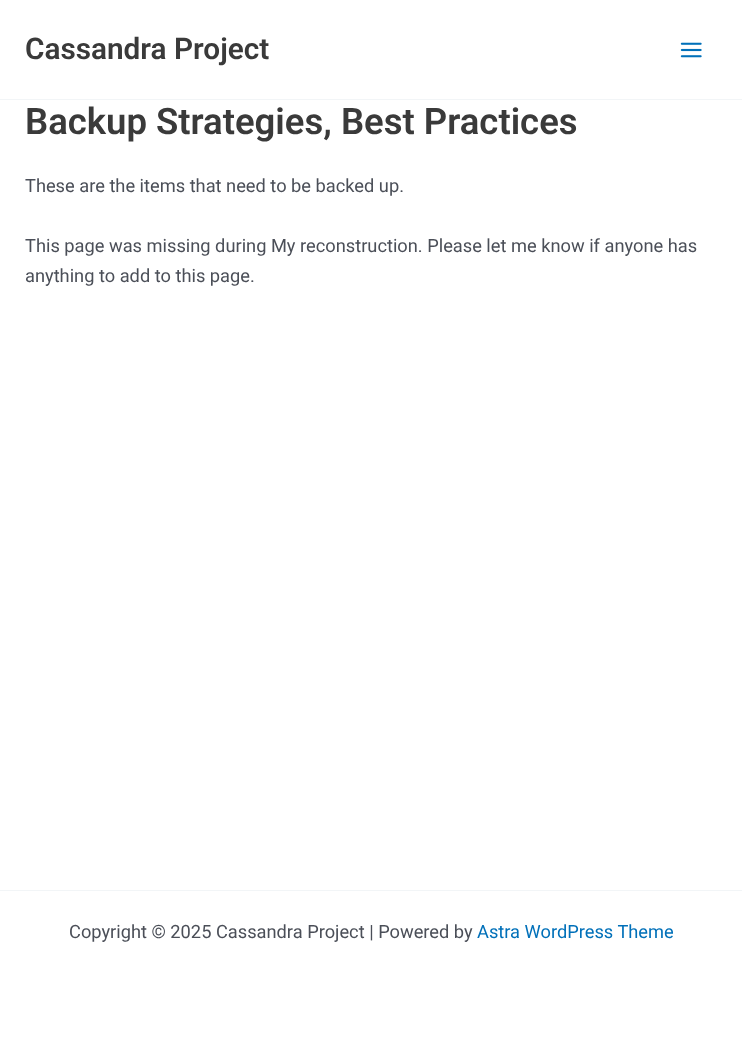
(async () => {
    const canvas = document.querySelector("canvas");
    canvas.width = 742;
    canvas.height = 1041;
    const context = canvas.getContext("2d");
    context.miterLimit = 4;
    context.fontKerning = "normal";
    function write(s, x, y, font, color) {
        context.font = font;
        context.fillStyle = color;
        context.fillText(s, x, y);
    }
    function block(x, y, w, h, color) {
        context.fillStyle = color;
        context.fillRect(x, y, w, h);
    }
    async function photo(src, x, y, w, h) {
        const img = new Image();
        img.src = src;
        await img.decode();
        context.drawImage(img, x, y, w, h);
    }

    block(0, 0, 742, 1041, "rgb(255, 255, 255)");
    block(0, 99, 742, 1, "rgb(242, 245, 247)");
    write("Cassandra Project", 25, 59, "600 29.75px Roboto", "rgb(58, 58, 58)");
    await photo("media/1.png", 680, 42, 22, 16);
    write("Backup Strategies, Best Practices", 25, 134, "600 36.5px Roboto", "rgb(58, 58, 58)");
    write("These are the items that need to be backed up.", 25, 192, "18.25px Roboto", "rgb(75, 79, 88)");
    write("This page was missing during My reconstruction. Please let me know if anyone has", 25, 252, "18.25px Roboto", "rgb(75, 79, 88)");
    write("anything to add to this page.", 25, 282, "18.25px Roboto", "rgb(75, 79, 88)");
    block(0, 890, 742, 1, "rgb(242, 245, 247)");
    write("Copyright © 2025 Cassandra Project | Powered by", 69, 938, "18.25px Roboto", "rgb(75, 79, 88)");
    write("Astra WordPress Theme", 477, 938, "18.25px Roboto", "rgb(1, 112, 185)");
})();
